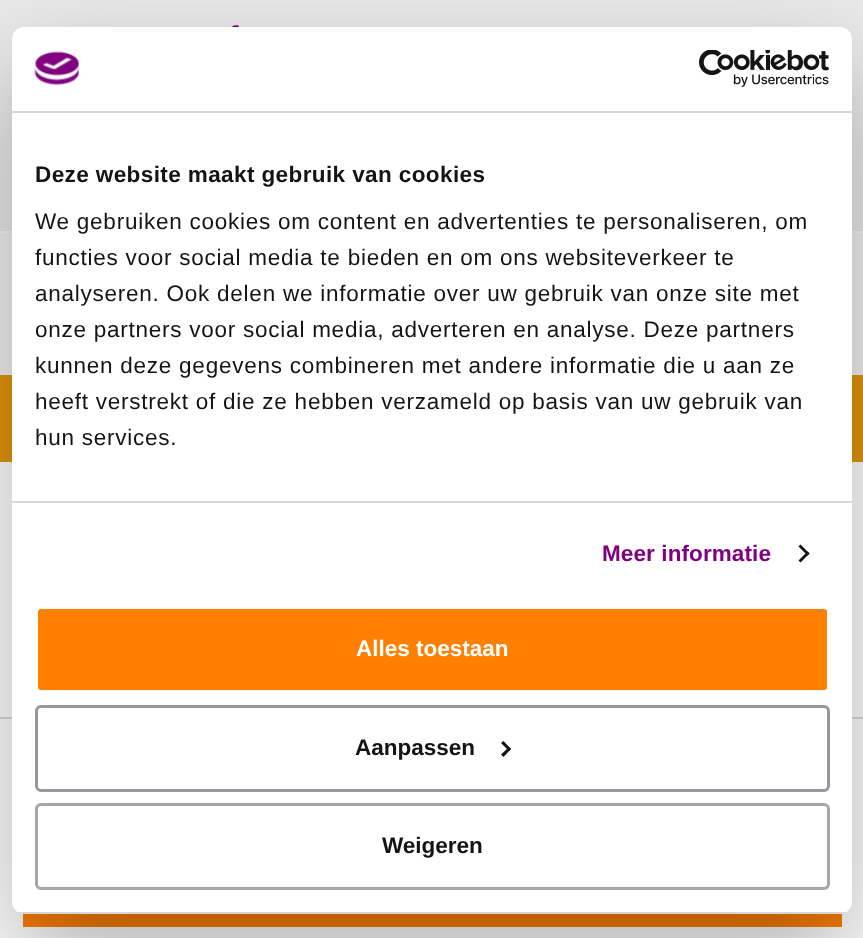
(async () => {
    const canvas = document.querySelector("canvas");
    canvas.width = 863;
    canvas.height = 938;
    const context = canvas.getContext("2d");
    context.miterLimit = 4;
    context.fontKerning = "normal";
    function write(s, x, y, font, color) {
        context.font = font;
        context.fillStyle = color;
        context.fillText(s, x, y);
    }
    function block(x, y, w, h, color) {
        context.fillStyle = color;
        context.fillRect(x, y, w, h);
    }
    function card(x, y, w, h, r, color) {
        context.fillStyle = color;
        context.beginPath();
        context.roundRect(x, y, w, h, r);
        context.fill();
    }
    async function photo(src, x, y, w, h) {
        const img = new Image();
        img.src = src;
        await img.decode();
        context.drawImage(img, x, y, w, h);
    }

    block(0, 0, 863, 938, "rgb(255, 255, 255)");
    block(0, 0, 863, 231, "rgb(233, 233, 233)");
    block(0, 231, 863, 2, "rgb(247, 247, 247)");
    await photo("media/1.png", 231, 25, 8, 2);
    block(0, 233, 863, 142, "rgb(241, 241, 241)");
    block(0, 375, 863, 87, "rgb(228, 149, 11)");
    block(0, 717, 863, 2, "rgb(221, 221, 221)");
    block(23, 913, 819, 14, "rgb(255, 128, 0)");
    context.fillStyle = "rgba(0, 0, 0, 0.3)";
    context.filter = "blur(51px)";
    context.beginPath();
    context.roundRect(12, 75, 840, 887, 12);
    context.fill();
    context.filter = "none";
    card(12, 27, 840, 887, 12, "rgb(255, 255, 255)");
    block(12, 111, 840, 2, "rgb(214, 214, 214)");
    await photo("media/2.png", 34, 51, 46, 34);
    await photo("media/3.png", 699, 50, 130, 37);
    block(12, 501, 840, 2, "rgb(214, 214, 214)");
    context.letterSpacing = "0.4px";
    write("Deze website maakt gebruik van cookies", 35, 182, "bold 22.5px Liberation Sans", "rgb(20, 20, 20)");
    context.letterSpacing = "0.75px";
    write("We gebruiken cookies om content en advertenties te personaliseren, om", 35, 229, "22.5px Liberation Sans", "rgb(20, 20, 20)");
    write("functies voor social media te bieden en om ons websiteverkeer te", 35, 265, "22.5px Liberation Sans", "rgb(20, 20, 20)");
    write("analyseren. Ook delen we informatie over uw gebruik van onze site met", 35, 301, "22.5px Liberation Sans", "rgb(20, 20, 20)");
    write("onze partners voor social media, adverteren en analyse. Deze partners", 35, 337, "22.5px Liberation Sans", "rgb(20, 20, 20)");
    write("kunnen deze gegevens combineren met andere informatie die u aan ze", 35, 373, "22.5px Liberation Sans", "rgb(20, 20, 20)");
    write("heeft verstrekt of die ze hebben verzameld op basis van uw gebruik van", 35, 409, "22.5px Liberation Sans", "rgb(20, 20, 20)");
    write("hun services.", 35, 445, "22.5px Liberation Sans", "rgb(20, 20, 20)");
    context.letterSpacing = "0.1px";
    write("Meer informatie", 602, 561, "bold 22.5px Liberation Sans", "rgb(128, 0, 128)");
    context.fillStyle = "rgb(20, 20, 20)";
    context.beginPath();
    context.moveTo(800.5, 544.5);
    context.lineTo(809.5, 553.5);
    context.lineTo(807.5, 555.5);
    context.lineTo(798.5, 546.5);
    context.closePath();
    context.fill();
    context.beginPath();
    context.moveTo(807.5, 551.5);
    context.lineTo(809.5, 553.5);
    context.lineTo(800.5, 562.5);
    context.lineTo(798.5, 560.5);
    context.closePath();
    context.fill();
    context.save();
    context.beginPath();
    context.roundRect(12, 27, 840, 887, 12);
    context.clip();
    block(12, 912, 840, 2, "rgb(214, 214, 214)");
    context.restore();
    context.fillStyle = "rgb(255, 128, 0)";
    context.beginPath();
    context.roundRect(36.5, 607.5, 792, 84, 4.5);
    context.fill();
    context.strokeStyle = "rgb(255, 255, 255)";
    context.lineWidth = 3;
    context.stroke();
    context.letterSpacing = "0px";
    write("Alles toestaan", 356, 656, "bold 22.5px Liberation Sans", "rgb(255, 255, 255)");
    context.beginPath();
    context.roundRect(36.5, 706.5, 792, 84, 4.5);
    context.strokeStyle = "rgb(150, 152, 158)";
    context.stroke();
    write("Aanpassen", 355, 755, "bold 22.5px Liberation Sans", "rgb(20, 20, 20)");
    context.beginPath();
    context.moveTo(503.5, 741);
    context.lineTo(511, 749);
    context.lineTo(509, 751);
    context.lineTo(501, 743);
    context.closePath();
    context.fill();
    context.beginPath();
    context.moveTo(509, 747);
    context.lineTo(511, 749);
    context.lineTo(503.5, 757);
    context.lineTo(501, 754.5);
    context.closePath();
    context.fill();
    context.beginPath();
    context.roundRect(36.5, 804.5, 792, 84, 4.5);
    context.strokeStyle = "rgb(165, 166, 169)";
    context.stroke();
    write("Weigeren", 382, 853, "bold 22.5px Liberation Sans", "rgb(20, 20, 20)");
})();
